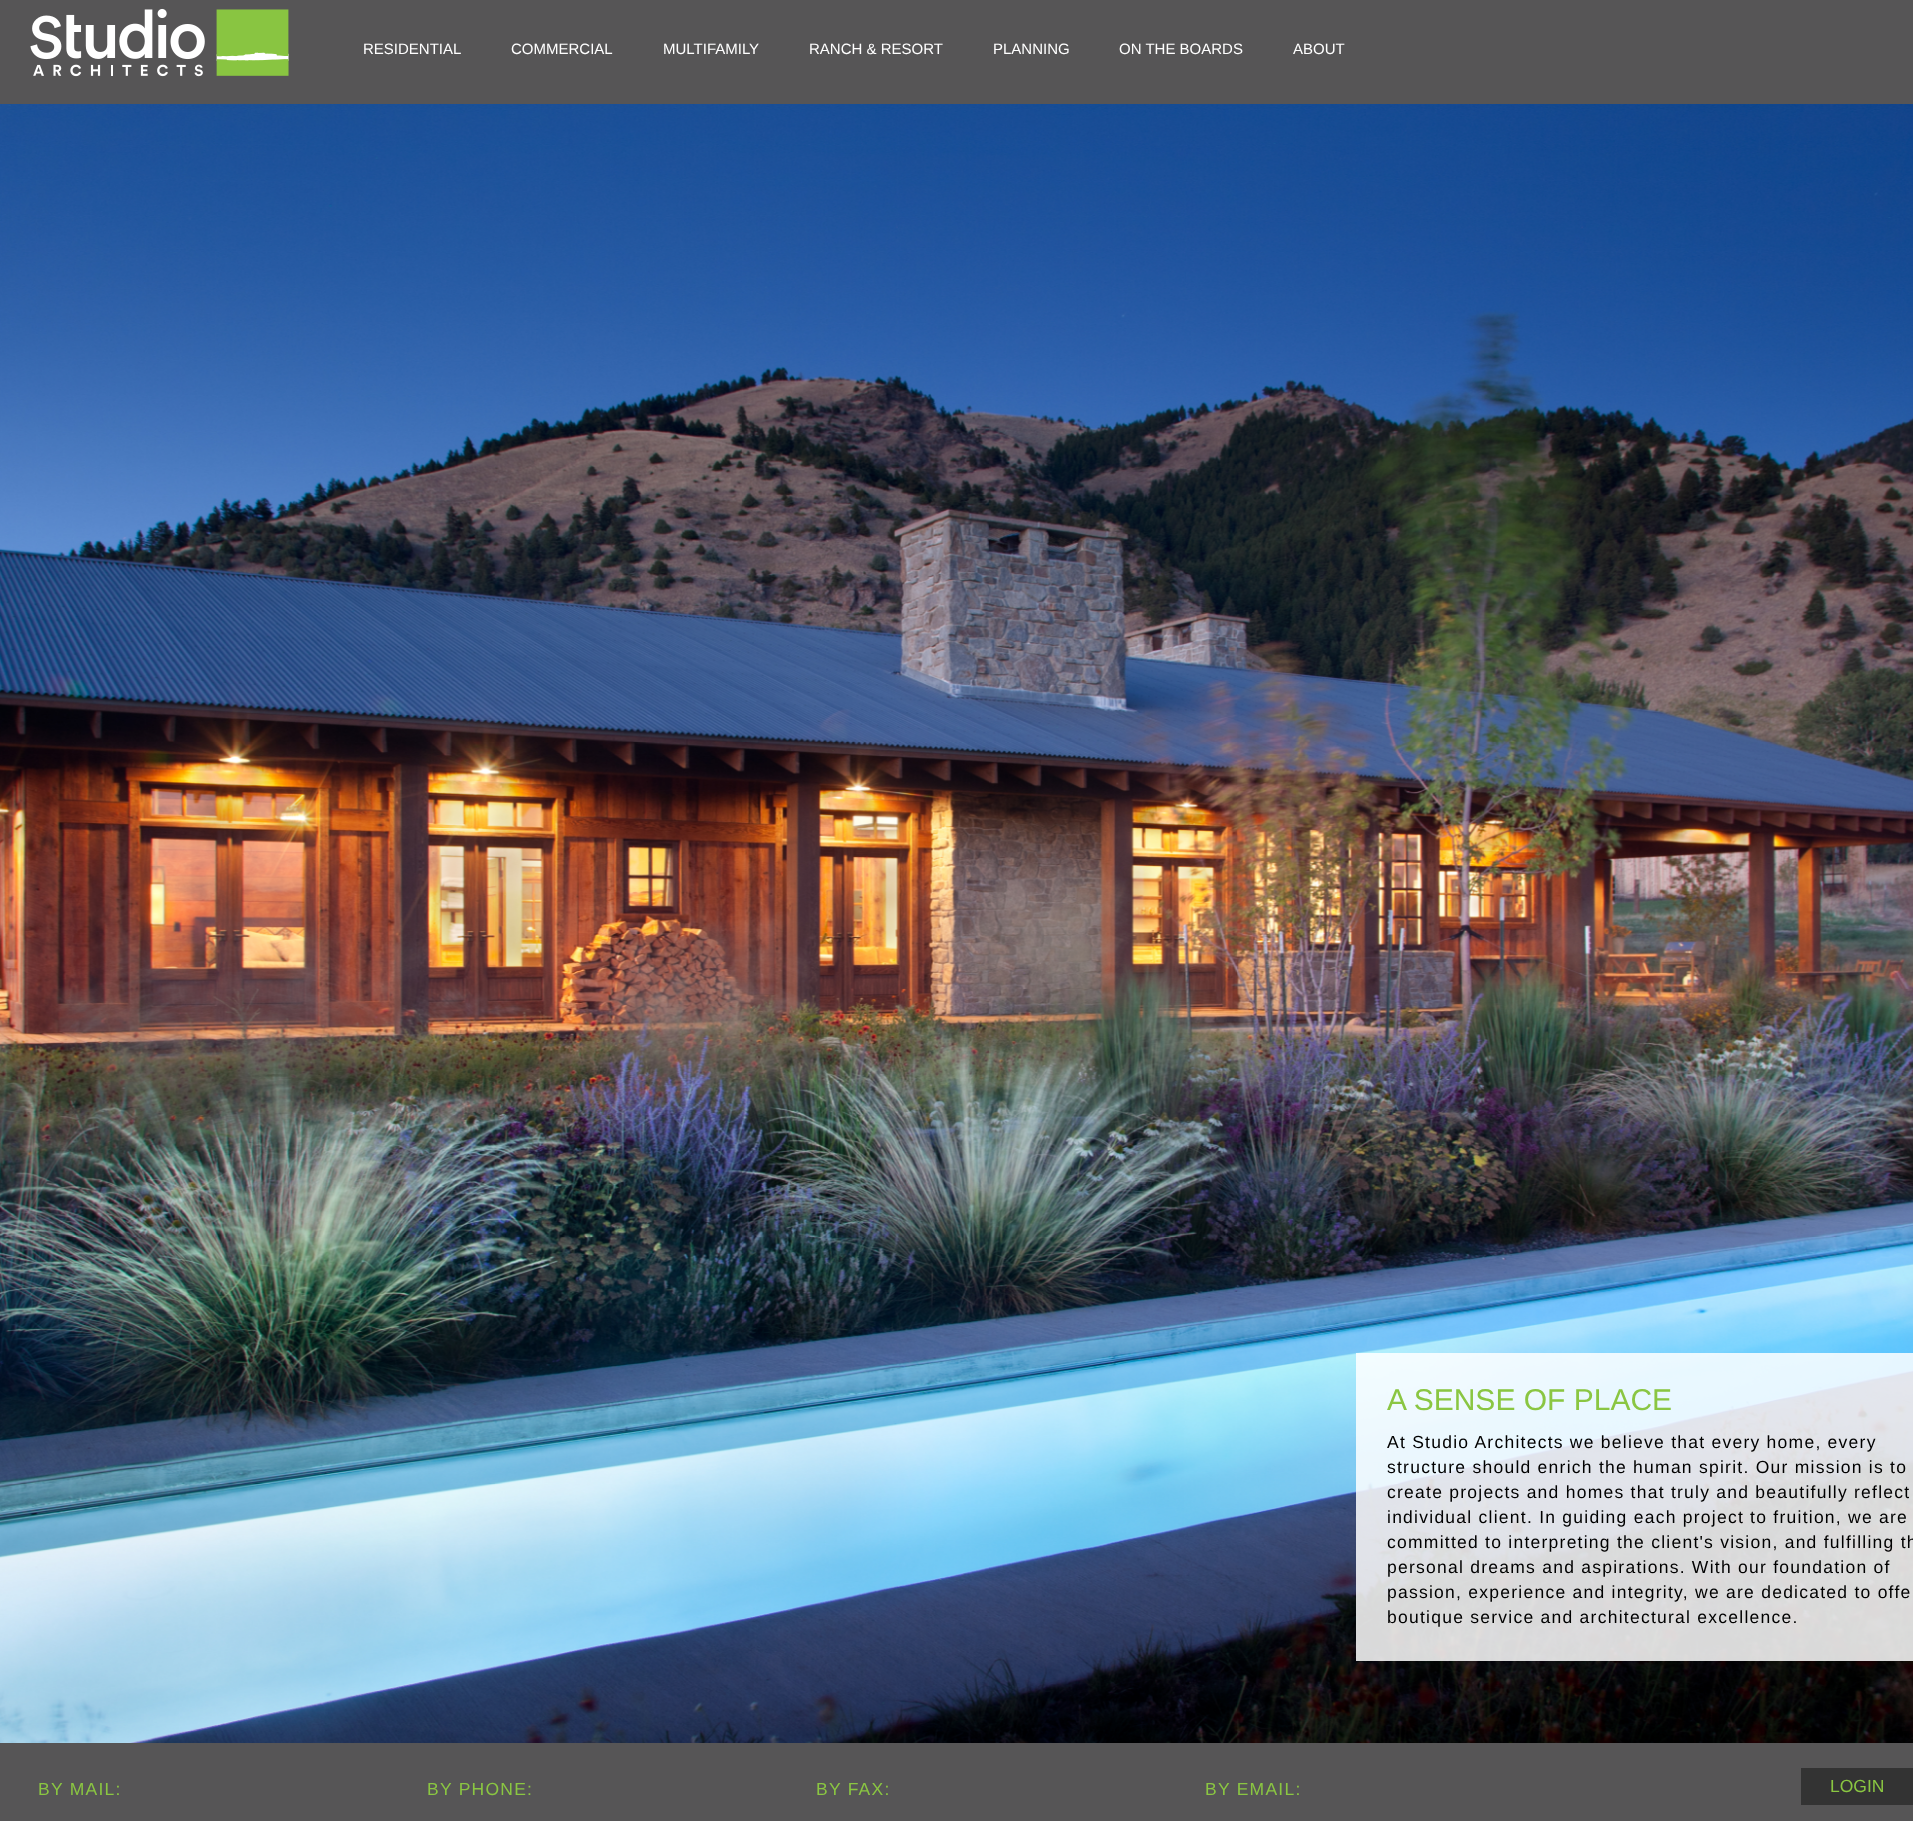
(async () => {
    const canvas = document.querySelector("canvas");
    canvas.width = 1913;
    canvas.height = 1821;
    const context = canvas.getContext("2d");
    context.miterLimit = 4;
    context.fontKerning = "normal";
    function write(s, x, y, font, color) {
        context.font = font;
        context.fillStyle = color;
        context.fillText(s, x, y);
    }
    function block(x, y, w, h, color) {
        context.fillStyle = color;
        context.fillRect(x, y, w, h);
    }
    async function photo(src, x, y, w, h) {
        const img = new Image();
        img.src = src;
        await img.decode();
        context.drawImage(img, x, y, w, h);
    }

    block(0, 0, 1913, 1821, "rgb(255, 255, 255)");
    await photo("media/1.png", 0, 104, 1913, 1639);
    block(0, 0, 1913, 104, "rgb(86, 85, 86)");
    await photo("media/2.png", 30, 8, 259, 69);
    write("RESIDENTIAL", 363, 54, "15px Liberation Sans", "rgb(255, 255, 255)");
    write("COMMERCIAL", 511, 54, "15px Liberation Sans", "rgb(255, 255, 255)");
    write("MULTIFAMILY", 663, 54, "15px Liberation Sans", "rgb(255, 255, 255)");
    write("RANCH & RESORT", 809, 54, "15px Liberation Sans", "rgb(255, 255, 255)");
    write("PLANNING", 993, 54, "15px Liberation Sans", "rgb(255, 255, 255)");
    write("ON THE BOARDS", 1119, 54, "15px Liberation Sans", "rgb(255, 255, 255)");
    write("ABOUT", 1293, 54, "15px Liberation Sans", "rgb(255, 255, 255)");
    block(1356, 1353, 557, 308, "rgba(255, 255, 255, 0.85)");
    write("A SENSE OF PLACE", 1387, 1410, "30px Liberation Sans", "rgb(138, 198, 66)");
    context.letterSpacing = "1.25px";
    write("At Studio Architects we believe that every home, every", 1387, 1448, "17.5px Liberation Sans", "rgb(0, 0, 0)");
    write("structure should enrich the human spirit. Our mission is to", 1387, 1473, "17.5px Liberation Sans", "rgb(0, 0, 0)");
    write("create projects and homes that truly and beautifully reflect", 1387, 1498, "17.5px Liberation Sans", "rgb(0, 0, 0)");
    write("individual client. In guiding each project to fruition, we are", 1387, 1523, "17.5px Liberation Sans", "rgb(0, 0, 0)");
    write("committed to interpreting the client's vision, and fulfilling th", 1387, 1548, "17.5px Liberation Sans", "rgb(0, 0, 0)");
    write("personal dreams and aspirations. With our foundation of", 1387, 1573, "17.5px Liberation Sans", "rgb(0, 0, 0)");
    write("passion, experience and integrity, we are dedicated to offe", 1387, 1598, "17.5px Liberation Sans", "rgb(0, 0, 0)");
    write("boutique service and architectural excellence.", 1387, 1623, "17.5px Liberation Sans", "rgb(0, 0, 0)");
    block(0, 1743, 1913, 78, "rgb(86, 85, 86)");
    write("BY MAIL:", 38, 1795, "17.5px Liberation Sans", "rgb(138, 198, 66)");
    write("BY PHONE:", 427, 1795, "17.5px Liberation Sans", "rgb(138, 198, 66)");
    write("BY FAX:", 816, 1795, "17.5px Liberation Sans", "rgb(138, 198, 66)");
    write("BY EMAIL:", 1205, 1795, "17.5px Liberation Sans", "rgb(138, 198, 66)");
    block(1801, 1768, 112, 37, "rgb(51, 51, 51)");
    context.letterSpacing = "0px";
    write("LOGIN", 1830, 1792, "17.5px Liberation Sans", "rgb(138, 198, 66)");
})();
